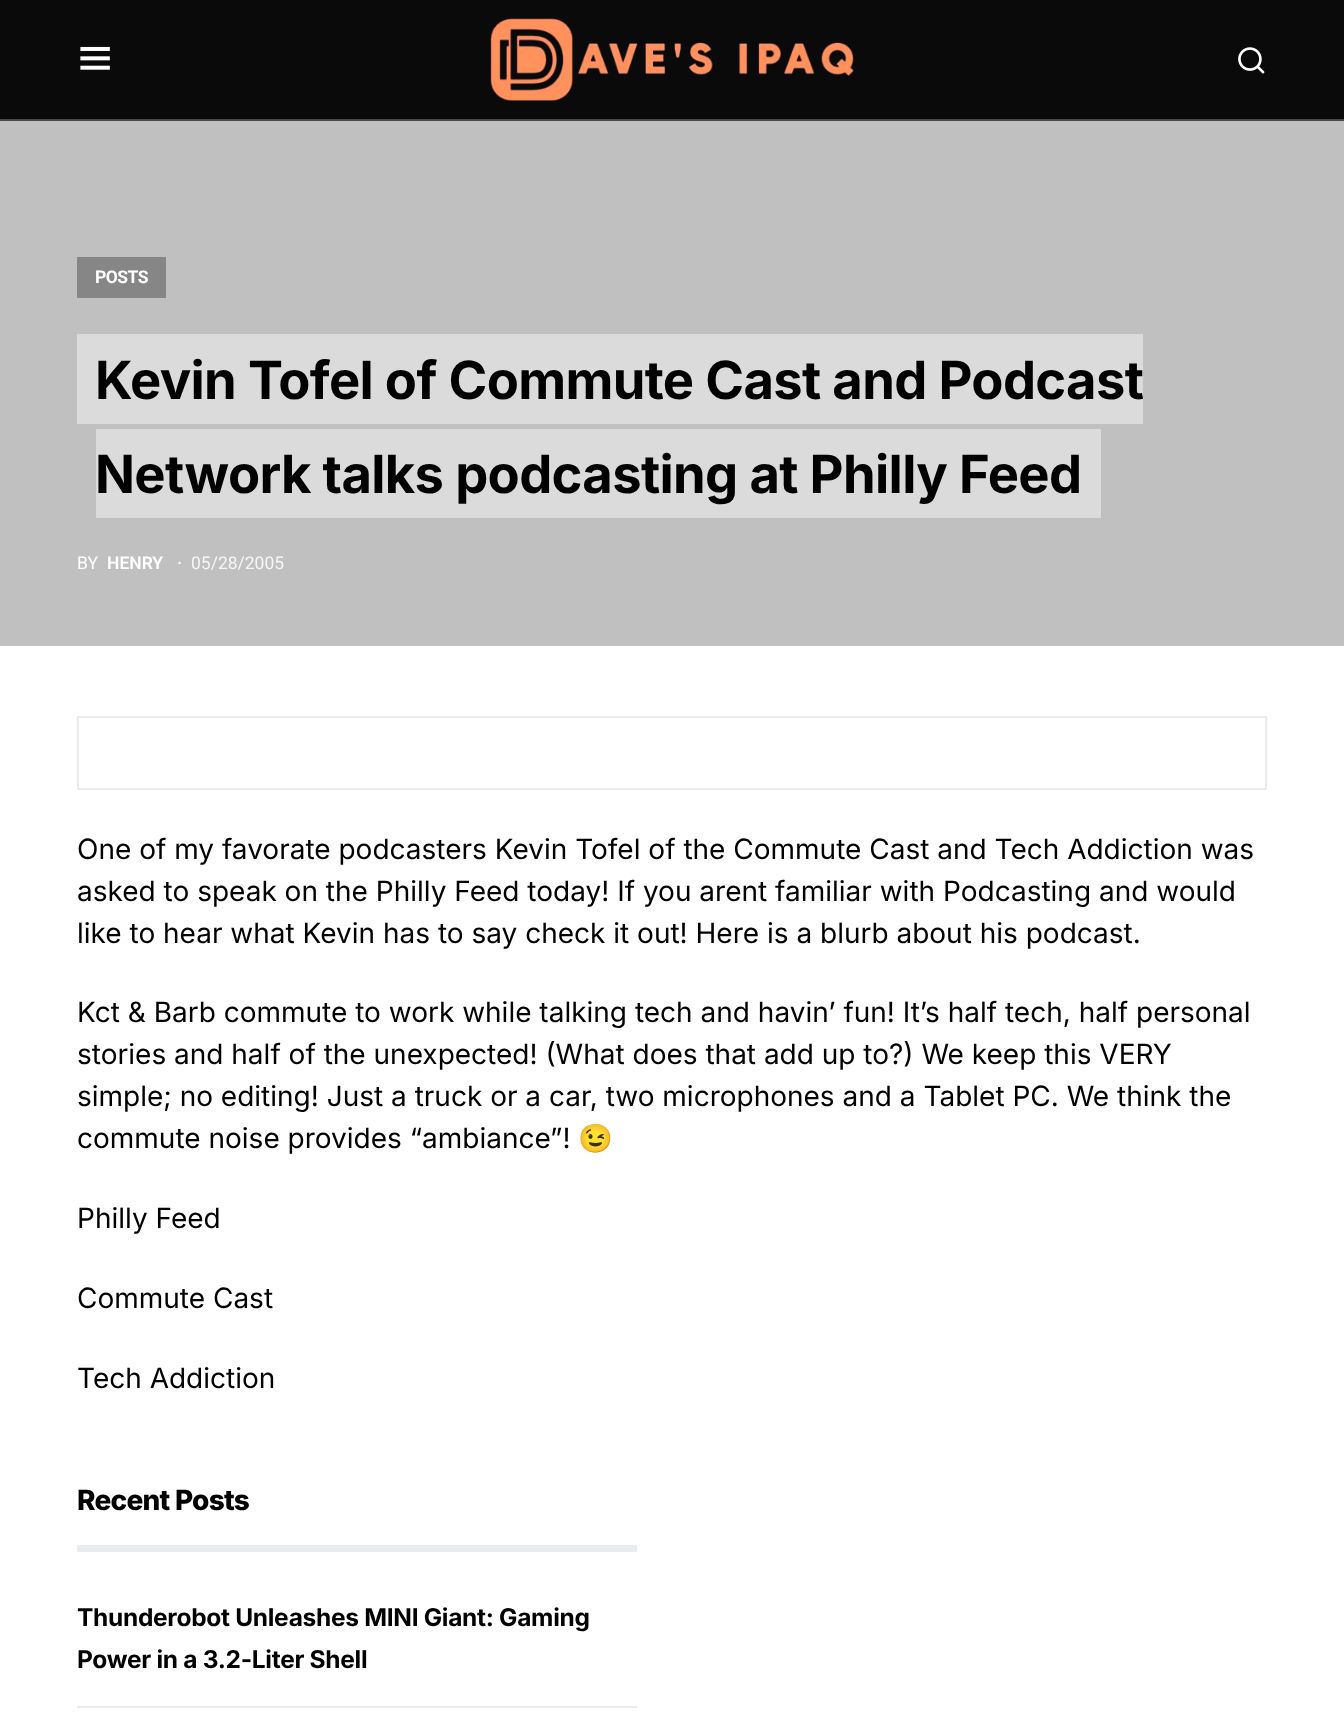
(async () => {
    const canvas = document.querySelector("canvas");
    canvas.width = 1344;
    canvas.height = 1719;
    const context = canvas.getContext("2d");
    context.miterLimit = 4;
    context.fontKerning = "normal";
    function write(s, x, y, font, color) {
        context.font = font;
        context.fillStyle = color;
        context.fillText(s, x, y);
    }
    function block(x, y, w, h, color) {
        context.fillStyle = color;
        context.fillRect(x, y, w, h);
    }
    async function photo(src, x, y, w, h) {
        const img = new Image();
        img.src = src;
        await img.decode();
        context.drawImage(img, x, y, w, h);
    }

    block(0, 0, 1344, 1719, "rgb(255, 255, 255)");
    block(0, 0, 1344, 119, "rgb(10, 10, 10)");
    block(0, 119, 1344, 2, "rgb(73, 73, 73)");
    await photo("media/1.png", 80, 46, 30, 24);
    await photo("media/2.png", 490, 18, 364, 84);
    await photo("media/3.png", 1238, 47, 27, 27);
    block(0, 121, 1344, 525, "rgb(192, 192, 192)");
    block(77, 257, 89, 41, "rgb(134, 134, 134)");
    context.letterSpacing = "-0.5px";
    write("POSTS", 95, 283, "bold 17.5px Roboto", "rgb(255, 255, 255)");
    block(77, 334, 1066, 90, "rgb(219, 219, 219)");
    context.letterSpacing = "-0.65px";
    write("Kevin Tofel of Commute Cast and Podcast", 95, 399, "bold 52.5px Inter", "rgb(0, 0, 0)");
    block(96, 429, 1005, 89, "rgb(219, 219, 219)");
    write("Network talks podcasting at Philly Feed", 95, 493, "bold 52.5px Inter", "rgb(0, 0, 0)");
    context.letterSpacing = "0px";
    write("BY", 77, 569, "17.5px Roboto", "rgb(255, 255, 255)");
    write("HENRY", 107, 569, "600 17.5px Roboto", "rgb(255, 255, 255)");
    write("·", 177, 569, "600 17.5px Roboto", "rgb(246, 246, 246)");
    write("05/28/2005", 191, 569, "17.5px Roboto", "rgb(246, 246, 246)");
    block(77, 716, 1190, 2, "rgb(233, 236, 239)");
    block(1265, 716, 2, 73, "rgb(233, 236, 239)");
    block(77, 788, 1190, 2, "rgb(233, 236, 239)");
    block(77, 716, 2, 73, "rgb(233, 236, 239)");
    write("One of my favorate podcasters Kevin Tofel of the Commute Cast and Tech Addiction was", 77, 859, "28px Inter", "rgb(0, 0, 0)");
    write("asked to speak on the Philly Feed today! If you arent familiar with Podcasting and would", 77, 901, "28px Inter", "rgb(0, 0, 0)");
    write("like to hear what Kevin has to say check it out! Here is a blurb about his podcast.", 77, 943, "28px Inter", "rgb(0, 0, 0)");
    write("Kct & Barb commute to work while talking tech and havin’ fun! It’s half tech, half personal", 77, 1022, "28px Inter", "rgb(0, 0, 0)");
    write("stories and half of the unexpected! (What does that add up to?) We keep this VERY", 77, 1064, "28px Inter", "rgb(0, 0, 0)");
    write("simple; no editing! Just a truck or a car, two microphones and a Tablet PC. We think the", 77, 1106, "28px Inter", "rgb(0, 0, 0)");
    write("commute noise provides “ambiance”!", 77, 1148, "28px Inter", "rgb(0, 0, 0)");
    write("😉", 578, 1148, "28px Noto Color Emoji", "rgb(0, 0, 0)");
    write("Philly Feed", 77, 1228, "28px Inter", "rgb(0, 0, 0)");
    write("Commute Cast", 77, 1308, "28px Inter", "rgb(0, 0, 0)");
    write("Tech Addiction", 77, 1388, "28px Inter", "rgb(0, 0, 0)");
    block(77, 1545, 560, 7, "rgb(233, 236, 239)");
    context.letterSpacing = "-0.75px";
    write("Recent Posts", 77, 1510, "800 28px Inter", "rgb(0, 0, 0)");
    block(77, 1706, 560, 2, "rgb(233, 236, 239)");
    context.letterSpacing = "-0.3px";
    write("Thunderobot Unleashes MINI Giant: Gaming", 77, 1626, "bold 24.5px Inter", "rgb(0, 0, 0)");
    write("Power in a 3.2-Liter Shell", 77, 1668, "bold 24.5px Inter", "rgb(0, 0, 0)");
})();
